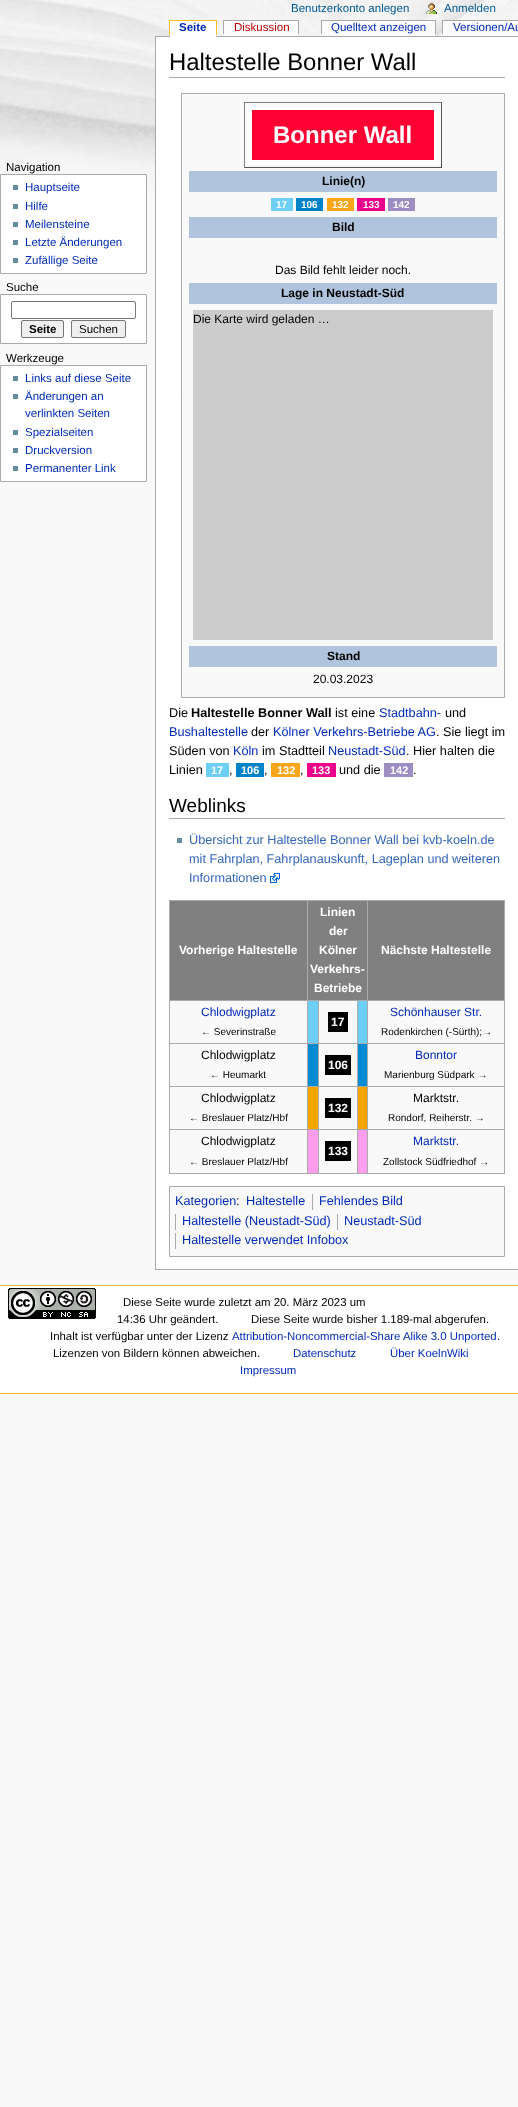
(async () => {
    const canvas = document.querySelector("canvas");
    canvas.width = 518;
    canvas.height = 2107;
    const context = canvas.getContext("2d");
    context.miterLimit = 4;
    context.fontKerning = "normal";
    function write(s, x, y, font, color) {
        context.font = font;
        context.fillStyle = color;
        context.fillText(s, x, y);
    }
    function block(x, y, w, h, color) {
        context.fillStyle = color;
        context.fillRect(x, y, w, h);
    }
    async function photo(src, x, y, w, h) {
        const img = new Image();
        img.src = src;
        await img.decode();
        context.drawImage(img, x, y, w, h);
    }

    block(0, 0, 518, 2107, "rgb(249, 249, 249)");
    await photo("media/1.png", 0, 0, 518, 194);
    write("Benutzerkonto anlegen", 291, 12, "11.5px Liberation Sans", "rgb(0, 88, 150)");
    await photo("media/2.png", 426, 3, 11, 11);
    write("Anmelden", 444, 12, "11.5px Liberation Sans", "rgb(0, 88, 150)");
    block(155, 36, 363, 1, "rgb(170, 170, 170)");
    block(170, 21, 46, 16, "rgb(255, 255, 255)");
    write("Seite", 179, 31, "bold 11.5px Liberation Sans", "rgb(0, 43, 184)");
    block(169, 20, 48, 1, "rgb(250, 189, 35)");
    block(216, 20, 1, 15, "rgb(250, 189, 35)");
    block(169, 20, 1, 15, "rgb(250, 189, 35)");
    block(224, 21, 74, 15, "rgb(251, 251, 251)");
    write("Diskussion", 234, 31, "11.5px Liberation Sans", "rgb(186, 0, 0)");
    block(223, 20, 76, 1, "rgb(170, 170, 170)");
    block(298, 20, 1, 14, "rgb(170, 170, 170)");
    block(223, 20, 1, 14, "rgb(170, 170, 170)");
    block(322, 21, 113, 15, "rgb(251, 251, 251)");
    write("Quelltext anzeigen", 331, 31, "11.5px Liberation Sans", "rgb(0, 43, 184)");
    block(321, 20, 115, 1, "rgb(170, 170, 170)");
    block(435, 20, 1, 14, "rgb(170, 170, 170)");
    block(321, 20, 1, 14, "rgb(170, 170, 170)");
    block(443, 21, 75, 15, "rgb(251, 251, 251)");
    write("Versionen/Au", 453, 31, "11.5px Liberation Sans", "rgb(0, 43, 184)");
    block(442, 20, 76, 1, "rgb(170, 170, 170)");
    block(442, 20, 1, 14, "rgb(170, 170, 170)");
    write("Navigation", 6, 171, "11.5px Liberation Sans", "rgb(0, 0, 0)");
    context.fillStyle = "rgb(255, 255, 255)";
    context.beginPath();
    context.rect(0.5, 174.5, 146, 99);
    context.fill();
    context.strokeStyle = "rgb(170, 170, 170)";
    context.stroke();
    block(13, 185, 5, 5, "rgb(99, 140, 156)");
    write("Hauptseite", 25, 191, "11.5px Liberation Sans", "rgb(0, 43, 184)");
    block(13, 204, 5, 5, "rgb(99, 140, 156)");
    write("Hilfe", 25, 210, "11.5px Liberation Sans", "rgb(0, 43, 184)");
    block(13, 222, 5, 5, "rgb(99, 140, 156)");
    write("Meilensteine", 25, 228, "11.5px Liberation Sans", "rgb(0, 43, 184)");
    block(13, 240, 5, 5, "rgb(99, 140, 156)");
    write("Letzte Änderungen", 25, 246, "11.5px Liberation Sans", "rgb(0, 43, 184)");
    block(13, 258, 5, 5, "rgb(99, 140, 156)");
    write("Zufällige Seite", 25, 264, "11.5px Liberation Sans", "rgb(0, 43, 184)");
    write("Suche", 6, 291, "11.5px Liberation Sans", "rgb(0, 0, 0)");
    context.fillStyle = "rgb(255, 255, 255)";
    context.beginPath();
    context.rect(0.5, 294.5, 146, 49);
    context.fill();
    context.stroke();
    context.beginPath();
    context.roundRect(11.5, 301.5, 124, 17, 1.5);
    context.strokeStyle = "rgb(118, 118, 118)";
    context.stroke();
    context.fillStyle = "rgb(239, 239, 239)";
    context.beginPath();
    context.roundRect(21.5, 320.5, 42, 17, 1.5);
    context.fill();
    context.stroke();
    write("Seite", 29, 333, "bold 11.5px Liberation Sans", "rgb(0, 0, 0)");
    context.fillStyle = "rgb(239, 239, 239)";
    context.beginPath();
    context.roundRect(71.5, 320.5, 54, 17, 1.5);
    context.fill();
    context.stroke();
    write("Suchen", 79, 333, "11.5px Liberation Sans", "rgb(0, 0, 0)");
    write("Werkzeuge", 6, 362, "11.5px Liberation Sans", "rgb(0, 0, 0)");
    context.fillStyle = "rgb(255, 255, 255)";
    context.beginPath();
    context.rect(0.5, 365.5, 146, 116);
    context.fill();
    context.strokeStyle = "rgb(170, 170, 170)";
    context.stroke();
    block(13, 376, 5, 5, "rgb(99, 140, 156)");
    write("Links auf diese Seite", 25, 382, "11.5px Liberation Sans", "rgb(0, 43, 184)");
    block(13, 394, 5, 5, "rgb(99, 140, 156)");
    write("Änderungen an", 25, 400, "11.5px Liberation Sans", "rgb(0, 43, 184)");
    write("verlinkten Seiten", 25, 417, "11.5px Liberation Sans", "rgb(0, 43, 184)");
    block(13, 430, 5, 5, "rgb(99, 140, 156)");
    write("Spezialseiten", 25, 436, "11.5px Liberation Sans", "rgb(0, 43, 184)");
    block(13, 448, 5, 5, "rgb(99, 140, 156)");
    write("Druckversion", 25, 454, "11.5px Liberation Sans", "rgb(0, 43, 184)");
    block(13, 466, 5, 5, "rgb(99, 140, 156)");
    write("Permanenter Link", 25, 472, "11.5px Liberation Sans", "rgb(0, 43, 184)");
    block(156, 37, 362, 1232, "rgb(255, 255, 255)");
    block(155, 1269, 363, 1, "rgb(170, 170, 170)");
    block(155, 36, 1, 1234, "rgb(170, 170, 170)");
    block(169, 77, 336, 1, "rgb(170, 170, 170)");
    write("Haltestelle Bonner Wall", 169, 70, "23.9px Liberation Sans", "rgb(0, 0, 0)");
    context.fillStyle = "rgb(249, 249, 249)";
    context.beginPath();
    context.rect(181.5, 93.5, 323, 604);
    context.fill();
    context.stroke();
    block(244, 102, 198, 1, "rgb(128, 128, 128)");
    block(441, 102, 1, 66, "rgb(85, 85, 85)");
    block(244, 167, 198, 1, "rgb(85, 85, 85)");
    block(244, 102, 1, 66, "rgb(128, 128, 128)");
    context.fillStyle = "rgb(255, 0, 51)";
    context.beginPath();
    context.rect(249.5, 107.5, 187, 55);
    context.fill();
    context.strokeStyle = "rgb(255, 255, 255)";
    context.lineWidth = 5;
    context.stroke();
    write("Bonner Wall", 273, 143, "bold 24px Liberation Sans", "rgb(255, 255, 255)");
    block(189, 171, 308, 21, "rgb(176, 196, 222)");
    write("Linie(n)", 322, 185, "bold 12px Liberation Sans", "rgb(0, 0, 0)");
    block(271, 198, 22, 13, "rgb(109, 207, 246)");
    write("17", 276, 208, "bold 10px Liberation Sans", "rgb(255, 255, 255)");
    block(296, 198, 27, 13, "rgb(0, 131, 201)");
    write("106", 301, 208, "bold 10px Liberation Sans", "rgb(255, 255, 255)");
    block(327, 198, 27, 13, "rgb(250, 166, 26)");
    write("132", 332, 208, "bold 10px Liberation Sans", "rgb(255, 255, 255)");
    block(357, 198, 28, 13, "rgb(236, 0, 140)");
    write("133", 363, 208, "bold 10px Liberation Sans", "rgb(255, 255, 255)");
    block(388, 198, 27, 13, "rgb(156, 141, 195)");
    write("142", 393, 208, "bold 10px Liberation Sans", "rgb(255, 255, 255)");
    block(189, 217, 308, 21, "rgb(176, 196, 222)");
    write("Bild", 332, 231, "bold 12px Liberation Sans", "rgb(0, 0, 0)");
    write("Das Bild fehlt leider noch.", 275, 274, "12px Liberation Sans", "rgb(0, 0, 0)");
    block(189, 283, 308, 21, "rgb(176, 196, 222)");
    write("Lage in Neustadt-Süd", 281, 297, "bold 12px Liberation Sans", "rgb(0, 0, 0)");
    block(193, 310, 300, 330, "rgb(204, 204, 204)");
    write("Die Karte wird geladen …", 193, 323, "12px Liberation Sans", "rgb(0, 0, 0)");
    block(189, 646, 308, 21, "rgb(176, 196, 222)");
    write("Stand", 327, 660, "bold 12px Liberation Sans", "rgb(0, 0, 0)");
    write("20.03.2023", 313, 683, "12px Liberation Sans", "rgb(0, 0, 0)");
    write("Die", 169, 717, "12.7px Liberation Sans", "rgb(0, 0, 0)");
    write("Haltestelle Bonner Wall", 191, 717, "bold 12.7px Liberation Sans", "rgb(0, 0, 0)");
    write("ist eine", 335, 717, "12.7px Liberation Sans", "rgb(0, 0, 0)");
    write("Stadtbahn-", 379, 717, "12.7px Liberation Sans", "rgb(0, 43, 184)");
    write("und", 445, 717, "12.7px Liberation Sans", "rgb(0, 0, 0)");
    write("Bushaltestelle", 169, 736, "12.7px Liberation Sans", "rgb(0, 43, 184)");
    write("der", 251, 736, "12.7px Liberation Sans", "rgb(0, 0, 0)");
    write("Kölner Verkehrs-Betriebe AG", 273, 736, "12.7px Liberation Sans", "rgb(0, 43, 184)");
    write(". Sie liegt im", 436, 736, "12.7px Liberation Sans", "rgb(0, 0, 0)");
    write("Süden von", 169, 755, "12.7px Liberation Sans", "rgb(0, 0, 0)");
    write("Köln", 233, 755, "12.7px Liberation Sans", "rgb(0, 43, 184)");
    write("im Stadtteil", 262, 755, "12.7px Liberation Sans", "rgb(0, 0, 0)");
    write("Neustadt-Süd", 328, 755, "12.7px Liberation Sans", "rgb(0, 43, 184)");
    write(". Hier halten die", 406, 755, "12.7px Liberation Sans", "rgb(0, 0, 0)");
    write("Linien", 169, 774, "12.7px Liberation Sans", "rgb(0, 0, 0)");
    block(206, 763, 23, 14, "rgb(109, 207, 246)");
    write("17", 211, 774, "bold 11px Liberation Sans", "rgb(255, 255, 255)");
    write(",", 229, 774, "12.7px Liberation Sans", "rgb(0, 0, 0)");
    block(236, 763, 28, 14, "rgb(0, 131, 201)");
    write("106", 241, 774, "bold 11px Liberation Sans", "rgb(255, 255, 255)");
    write(",", 264, 774, "12.7px Liberation Sans", "rgb(0, 0, 0)");
    block(271, 763, 29, 14, "rgb(250, 166, 26)");
    write("132", 277, 774, "bold 11px Liberation Sans", "rgb(255, 255, 255)");
    write(",", 300, 774, "12.7px Liberation Sans", "rgb(0, 0, 0)");
    block(307, 763, 29, 14, "rgb(236, 0, 140)");
    write("133", 312, 774, "bold 11px Liberation Sans", "rgb(255, 255, 255)");
    write("und die", 339, 774, "12.7px Liberation Sans", "rgb(0, 0, 0)");
    block(384, 763, 29, 14, "rgb(156, 141, 195)");
    write("142", 390, 774, "bold 11px Liberation Sans", "rgb(255, 255, 255)");
    write(".", 413, 774, "12.7px Liberation Sans", "rgb(0, 0, 0)");
    block(169, 818, 336, 1, "rgb(170, 170, 170)");
    write("Weblinks", 169, 812, "19px Liberation Sans", "rgb(0, 0, 0)");
    block(177, 838, 5, 5, "rgb(99, 140, 156)");
    write("Übersicht zur Haltestelle Bonner Wall bei kvb-koeln.de", 189, 844, "12.7px Liberation Sans", "rgb(51, 102, 187)");
    write("mit Fahrplan, Fahrplanauskunft, Lageplan und weiteren", 189, 863, "12.7px Liberation Sans", "rgb(51, 102, 187)");
    write("Informationen", 189, 882, "12.7px Liberation Sans", "rgb(51, 102, 187)");
    await photo("media/3.png", 270, 873, 10, 10);
    block(170, 1001, 334, 172, "rgb(249, 249, 249)");
    block(169, 900, 336, 1, "rgb(170, 170, 170)");
    block(504, 900, 1, 274, "rgb(170, 170, 170)");
    block(169, 1173, 336, 1, "rgb(170, 170, 170)");
    block(169, 900, 1, 274, "rgb(170, 170, 170)");
    block(170, 901, 334, 99, "rgb(128, 128, 128)");
    write("Vorherige Haltestelle", 179, 954, "bold 12px Liberation Sans", "rgb(255, 255, 255)");
    block(367, 1000, 138, 1, "rgb(170, 170, 170)");
    block(367, 1043, 138, 1, "rgb(170, 170, 170)");
    block(367, 1086, 138, 1, "rgb(170, 170, 170)");
    block(367, 1129, 138, 1, "rgb(170, 170, 170)");
    block(367, 1129, 1, 45, "rgb(170, 170, 170)");
    block(357, 1129, 11, 1, "rgb(170, 170, 170)");
    block(367, 1086, 1, 44, "rgb(170, 170, 170)");
    block(357, 1086, 11, 1, "rgb(170, 170, 170)");
    block(367, 1043, 1, 44, "rgb(170, 170, 170)");
    block(357, 1043, 11, 1, "rgb(170, 170, 170)");
    block(367, 1000, 1, 44, "rgb(170, 170, 170)");
    block(357, 1000, 11, 1, "rgb(170, 170, 170)");
    block(357, 1129, 1, 45, "rgb(170, 170, 170)");
    block(318, 1129, 40, 1, "rgb(170, 170, 170)");
    block(357, 1086, 1, 44, "rgb(170, 170, 170)");
    block(318, 1086, 40, 1, "rgb(170, 170, 170)");
    block(357, 1043, 1, 44, "rgb(170, 170, 170)");
    block(318, 1043, 40, 1, "rgb(170, 170, 170)");
    block(357, 1000, 1, 44, "rgb(170, 170, 170)");
    block(318, 1000, 40, 1, "rgb(170, 170, 170)");
    block(318, 1129, 1, 45, "rgb(170, 170, 170)");
    block(307, 1129, 12, 1, "rgb(170, 170, 170)");
    block(318, 1086, 1, 44, "rgb(170, 170, 170)");
    block(307, 1086, 12, 1, "rgb(170, 170, 170)");
    block(318, 1043, 1, 44, "rgb(170, 170, 170)");
    block(307, 1043, 12, 1, "rgb(170, 170, 170)");
    block(318, 1000, 1, 44, "rgb(170, 170, 170)");
    block(307, 1000, 12, 1, "rgb(170, 170, 170)");
    block(307, 1129, 1, 45, "rgb(170, 170, 170)");
    block(169, 1129, 139, 1, "rgb(170, 170, 170)");
    block(307, 1086, 1, 44, "rgb(170, 170, 170)");
    block(169, 1086, 139, 1, "rgb(170, 170, 170)");
    block(307, 1043, 1, 44, "rgb(170, 170, 170)");
    block(169, 1043, 139, 1, "rgb(170, 170, 170)");
    block(307, 1000, 1, 44, "rgb(170, 170, 170)");
    block(169, 1000, 139, 1, "rgb(170, 170, 170)");
    block(307, 900, 1, 101, "rgb(170, 170, 170)");
    write("Linien", 320, 916, "bold 12px Liberation Sans", "rgb(255, 255, 255)");
    write("der", 329, 935, "bold 12px Liberation Sans", "rgb(255, 255, 255)");
    write("Kölner", 319, 954, "bold 12px Liberation Sans", "rgb(255, 255, 255)");
    write("Verkehrs-", 310, 973, "bold 12px Liberation Sans", "rgb(255, 255, 255)");
    write("Betriebe", 314, 992, "bold 12px Liberation Sans", "rgb(255, 255, 255)");
    block(367, 900, 1, 101, "rgb(170, 170, 170)");
    write("Nächste Haltestelle", 381, 954, "bold 12px Liberation Sans", "rgb(255, 255, 255)");
    write("Chlodwigplatz", 201, 1016, "12px Liberation Sans", "rgb(0, 43, 184)");
    write("← Severinstraße", 201, 1035, "10px Liberation Sans", "rgb(0, 0, 0)");
    block(308, 1001, 10, 42, "rgb(109, 207, 246)");
    block(328, 1012, 20, 20, "rgb(0, 0, 0)");
    write("17", 331, 1026, "bold 12px Liberation Sans", "rgb(255, 255, 255)");
    block(358, 1001, 9, 42, "rgb(109, 207, 246)");
    write("Schönhauser Str.", 390, 1016, "12px Liberation Sans", "rgb(0, 43, 184)");
    write("Rodenkirchen (-Sürth);→", 381, 1035, "10px Liberation Sans", "rgb(0, 0, 0)");
    write("Chlodwigplatz", 201, 1059, "12px Liberation Sans", "rgb(0, 0, 0)");
    write("← Heumarkt", 210, 1078, "10px Liberation Sans", "rgb(0, 0, 0)");
    block(308, 1044, 10, 42, "rgb(0, 139, 210)");
    block(325, 1055, 26, 20, "rgb(0, 0, 0)");
    write("106", 328, 1069, "bold 12px Liberation Sans", "rgb(255, 255, 255)");
    block(358, 1044, 9, 42, "rgb(0, 139, 210)");
    write("Bonntor", 415, 1059, "12px Liberation Sans", "rgb(0, 43, 184)");
    write("Marienburg Südpark →", 384, 1078, "10px Liberation Sans", "rgb(0, 0, 0)");
    write("Chlodwigplatz", 201, 1102, "12px Liberation Sans", "rgb(0, 0, 0)");
    write("← Breslauer Platz/Hbf", 189, 1121, "10px Liberation Sans", "rgb(0, 0, 0)");
    block(308, 1087, 10, 42, "rgb(247, 166, 0)");
    block(325, 1098, 26, 20, "rgb(0, 0, 0)");
    write("132", 328, 1112, "bold 12px Liberation Sans", "rgb(255, 255, 255)");
    block(358, 1087, 9, 42, "rgb(247, 166, 0)");
    write("Marktstr.", 413, 1102, "12px Liberation Sans", "rgb(0, 0, 0)");
    write("Rondorf, Reiherstr. →", 388, 1121, "10px Liberation Sans", "rgb(0, 0, 0)");
    write("Chlodwigplatz", 201, 1145, "12px Liberation Sans", "rgb(0, 0, 0)");
    write("← Breslauer Platz/Hbf", 189, 1165, "10px Liberation Sans", "rgb(0, 0, 0)");
    block(308, 1130, 10, 43, "rgb(255, 158, 238)");
    block(325, 1141, 26, 20, "rgb(0, 0, 0)");
    write("133", 328, 1155, "bold 12px Liberation Sans", "rgb(255, 255, 255)");
    block(358, 1130, 9, 43, "rgb(255, 158, 238)");
    write("Marktstr.", 413, 1145, "12px Liberation Sans", "rgb(0, 43, 184)");
    write("Zollstock Südfriedhof →", 383, 1165, "10px Liberation Sans", "rgb(0, 0, 0)");
    context.fillStyle = "rgb(249, 249, 249)";
    context.beginPath();
    context.rect(169.5, 1186.5, 335, 70);
    context.fill();
    context.strokeStyle = "rgb(170, 170, 170)";
    context.lineWidth = 1;
    context.stroke();
    write("Kategorien", 175, 1205, "12.7px Liberation Sans", "rgb(0, 43, 184)");
    write("Haltestelle", 246, 1205, "12.7px Liberation Sans", "rgb(0, 43, 184)");
    block(312, 1194, 1, 16, "rgb(170, 170, 170)");
    write("Fehlendes Bild", 319, 1205, "12.7px Liberation Sans", "rgb(0, 43, 184)");
    block(175, 1214, 1, 16, "rgb(170, 170, 170)");
    write("Haltestelle (Neustadt-Süd)", 182, 1225, "12.7px Liberation Sans", "rgb(0, 43, 184)");
    block(337, 1214, 1, 16, "rgb(170, 170, 170)");
    write("Neustadt-Süd", 344, 1225, "12.7px Liberation Sans", "rgb(0, 43, 184)");
    block(175, 1233, 1, 16, "rgb(170, 170, 170)");
    write("Haltestelle verwendet Infobox", 182, 1244, "12.7px Liberation Sans", "rgb(0, 43, 184)");
    write(":", 236, 1205, "12.7px Liberation Sans", "rgb(0, 0, 0)");
    block(0, 1286, 518, 107, "rgb(255, 255, 255)");
    block(0, 1285, 518, 1, "rgb(250, 189, 35)");
    block(0, 1393, 518, 1, "rgb(250, 189, 35)");
    await photo("media/4.png", 8, 1288, 88, 31);
    write("Diese Seite wurde zuletzt am 20. März 2023 um", 123, 1306, "11.4px Liberation Sans", "rgb(0, 0, 0)");
    write("14:36 Uhr geändert.", 117, 1323, "11.4px Liberation Sans", "rgb(0, 0, 0)");
    write("Diese Seite wurde bisher 1.189-mal abgerufen.", 251, 1323, "11.4px Liberation Sans", "rgb(0, 0, 0)");
    write("Inhalt ist verfügbar unter der Lizenz", 50, 1340, "11.4px Liberation Sans", "rgb(0, 0, 0)");
    write("Attribution-Noncommercial-Share Alike 3.0 Unported", 232, 1340, "11.4px Liberation Sans", "rgb(0, 43, 184)");
    write(".", 497, 1340, "11.4px Liberation Sans", "rgb(0, 0, 0)");
    write("Lizenzen von Bildern können abweichen.", 53, 1357, "11.4px Liberation Sans", "rgb(0, 0, 0)");
    write("Datenschutz", 293, 1357, "11.4px Liberation Sans", "rgb(0, 43, 184)");
    write("Über KoelnWiki", 390, 1357, "11.4px Liberation Sans", "rgb(0, 43, 184)");
    write("Impressum", 240, 1374, "11.4px Liberation Sans", "rgb(0, 43, 184)");
})();
